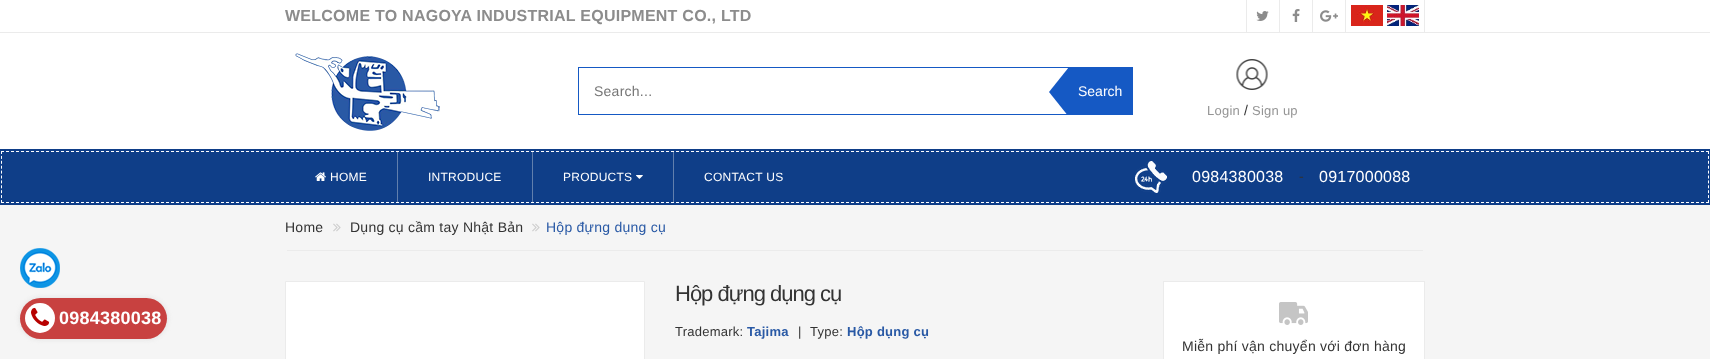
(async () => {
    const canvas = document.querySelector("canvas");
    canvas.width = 1710;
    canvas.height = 359;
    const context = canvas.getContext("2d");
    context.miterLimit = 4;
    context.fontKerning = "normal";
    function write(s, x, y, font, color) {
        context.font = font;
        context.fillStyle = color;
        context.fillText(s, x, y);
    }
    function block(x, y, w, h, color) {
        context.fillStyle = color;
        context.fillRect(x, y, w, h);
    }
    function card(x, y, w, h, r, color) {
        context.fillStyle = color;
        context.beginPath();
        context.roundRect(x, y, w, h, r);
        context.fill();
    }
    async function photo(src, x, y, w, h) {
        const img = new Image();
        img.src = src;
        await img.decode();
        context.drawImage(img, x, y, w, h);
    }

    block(0, 0, 1710, 359, "rgb(245, 245, 245)");
    block(0, 0, 1710, 32, "rgb(255, 255, 255)");
    block(0, 32, 1710, 1, "rgb(235, 235, 235)");
    context.letterSpacing = "0.25px";
    write("WELCOME TO NAGOYA INDUSTRIAL EQUIPMENT CO., LTD", 285, 21, "bold 16px Liberation Sans", "rgb(140, 140, 140)");
    block(1246, 0, 1, 32, "rgb(235, 235, 235)");
    await photo("media/1.png", 1256, 11, 13, 10);
    block(1279, 0, 1, 32, "rgb(235, 235, 235)");
    await photo("media/2.png", 1292, 9, 8, 13);
    block(1312, 0, 1, 32, "rgb(235, 235, 235)");
    await photo("media/3.png", 1320, 10, 18, 12);
    block(1424, 0, 1, 32, "rgb(235, 235, 235)");
    block(1345, 0, 1, 32, "rgb(235, 235, 235)");
    await photo("media/4.png", 1351, 5, 32, 21);
    await photo("media/5.png", 1387, 5, 32, 21);
    block(0, 33, 1710, 116, "rgb(255, 255, 255)");
    await photo("media/6.png", 295, 53, 145, 78);
    context.strokeStyle = "rgb(21, 89, 196)";
    context.strokeRect(578.5, 67.5, 554, 47);
    write("Search...", 594, 96, "14px Liberation Sans", "rgb(117, 117, 117)");
    block(1068, 68, 64, 46, "rgb(21, 89, 196)");
    context.save();
    context.beginPath();
    context.rect(578, 67, 555, 48);
    context.clip();
    context.beginPath();
    context.moveTo(1069, 67);
    context.lineTo(1069, 117);
    context.lineTo(1049, 92);
    context.closePath();
    context.fill();
    context.restore();
    context.letterSpacing = "0px";
    write("Search", 1078, 96, "14px Liberation Sans", "rgb(255, 255, 255)");
    await photo("media/7.png", 1236, 59, 32, 31);
    context.letterSpacing = "0.25px";
    write("Login", 1207, 115, "13px Liberation Sans", "rgb(149, 149, 149)");
    write("/", 1244, 115, "14px Liberation Sans", "rgb(51, 51, 51)");
    write("Sign up", 1252, 115, "13px Liberation Sans", "rgb(149, 149, 149)");
    block(0, 149, 1710, 56, "rgb(15, 62, 136)");
    context.beginPath();
    context.moveTo(1, 151.5);
    context.lineTo(1709, 151.5);
    context.strokeStyle = "rgb(255, 255, 255)";
    context.setLineDash([3, 2]);
    context.stroke();
    context.beginPath();
    context.moveTo(1708.5, 151);
    context.lineTo(1708.5, 203);
    context.setLineDash([3, 1.9]);
    context.stroke();
    context.beginPath();
    context.moveTo(1, 202.5);
    context.lineTo(1709, 202.5);
    context.setLineDash([3, 2]);
    context.stroke();
    context.beginPath();
    context.moveTo(1.5, 151);
    context.lineTo(1.5, 203);
    context.setLineDash([3, 1.9]);
    context.stroke();
    await photo("media/8.png", 315, 172, 11, 9);
    write("HOME", 330, 181, "12px Liberation Sans", "rgb(255, 255, 255)");
    block(397, 152, 1, 50, "rgb(97, 127, 173)");
    write("INTRODUCE", 428, 181, "12px Liberation Sans", "rgb(255, 255, 255)");
    block(532, 152, 1, 50, "rgb(97, 127, 173)");
    write("PRODUCTS", 563, 181, "12px Liberation Sans", "rgb(255, 255, 255)");
    await photo("media/9.png", 636, 175, 7, 4);
    block(673, 152, 1, 50, "rgb(97, 127, 173)");
    write("CONTACT US", 704, 181, "12px Liberation Sans", "rgb(255, 255, 255)");
    await photo("media/10.png", 1135, 161, 32, 32);
    write("0984380038", 1192, 182, "16px Liberation Sans", "rgb(255, 255, 255)");
    write("-", 1299, 181, "14px Liberation Sans", "rgb(51, 51, 51)");
    write("0917000088", 1319, 182, "16px Liberation Sans", "rgb(255, 255, 255)");
    await photo("media/11.png", 20, 248, 40, 40);
    context.save();
    context.beginPath();
    context.moveTo(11, 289);
    context.lineTo(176, 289);
    context.lineTo(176, 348);
    context.lineTo(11, 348);
    context.closePath();
    context.moveTo(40.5, 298);
    context.lineTo(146.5, 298);
    context.bezierCurveTo(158, 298, 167, 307, 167, 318.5);
    context.bezierCurveTo(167, 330, 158, 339, 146.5, 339);
    context.lineTo(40.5, 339);
    context.bezierCurveTo(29, 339, 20, 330, 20, 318.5);
    context.bezierCurveTo(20, 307, 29, 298, 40.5, 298);
    context.closePath();
    context.clip("evenodd");
    context.fillStyle = "rgb(221, 221, 221)";
    context.filter = "blur(2.5px)";
    context.beginPath();
    context.roundRect(20, 298, 147, 41, 20.5);
    context.fill();
    context.filter = "none";
    context.restore();
    card(20, 298, 147, 41, 20.5, "rgba(183, 1, 0, 0.74)");
    context.fillStyle = "rgb(255, 255, 255)";
    context.beginPath();
    context.arc(40, 318, 15, 0, Math.PI * 2);
    context.fill();
    await photo("media/12.png", 31, 307, 19, 19);
    write("0984380038", 59, 324, "bold 18px Liberation Sans", "rgb(255, 255, 255)");
    block(287, 250, 1136, 1, "rgb(235, 235, 235)");
    write("Home", 285, 232, "14px Liberation Sans", "rgb(51, 51, 51)");
    await photo("media/13.png", 333, 223, 8, 9);
    write("Dụng cụ cầm tay Nhật Bản", 350, 232, "14px Liberation Sans", "rgb(51, 51, 51)");
    await photo("media/13.png", 532, 223, 8, 9);
    write("Hộp đựng dụng cụ", 546, 232, "14px Liberation Sans", "rgb(41, 89, 165)");
    context.fillStyle = "rgb(255, 255, 255)";
    context.beginPath();
    context.rect(285.5, 281.5, 359, 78);
    context.fill();
    context.strokeStyle = "rgb(235, 235, 235)";
    context.setLineDash([]);
    context.stroke();
    context.letterSpacing = "-1px";
    write("Hộp đựng dụng cụ", 675, 301, "22px Liberation Sans", "rgb(51, 51, 51)");
    context.letterSpacing = "0.25px";
    write("Trademark:", 675, 336, "13px Liberation Sans", "rgb(51, 51, 51)");
    write("Tajima", 747, 336, "bold 13px Liberation Sans", "rgb(41, 89, 165)");
    write("|", 798, 336, "13px Liberation Sans", "rgb(51, 51, 51)");
    write("Type:", 810, 336, "13px Liberation Sans", "rgb(51, 51, 51)");
    write("Hộp dụng cụ", 847, 336, "bold 13px Liberation Sans", "rgb(41, 89, 165)");
    context.strokeRect(1163.5, 281.5, 261, 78);
    block(1164, 282, 260, 77, "rgb(255, 255, 255)");
    await photo("media/14.png", 1279, 302, 29, 23);
    write("Miễn phí vận chuyển với đơn hàng", 1182, 351, "14px Liberation Sans", "rgb(51, 51, 51)");
})();
